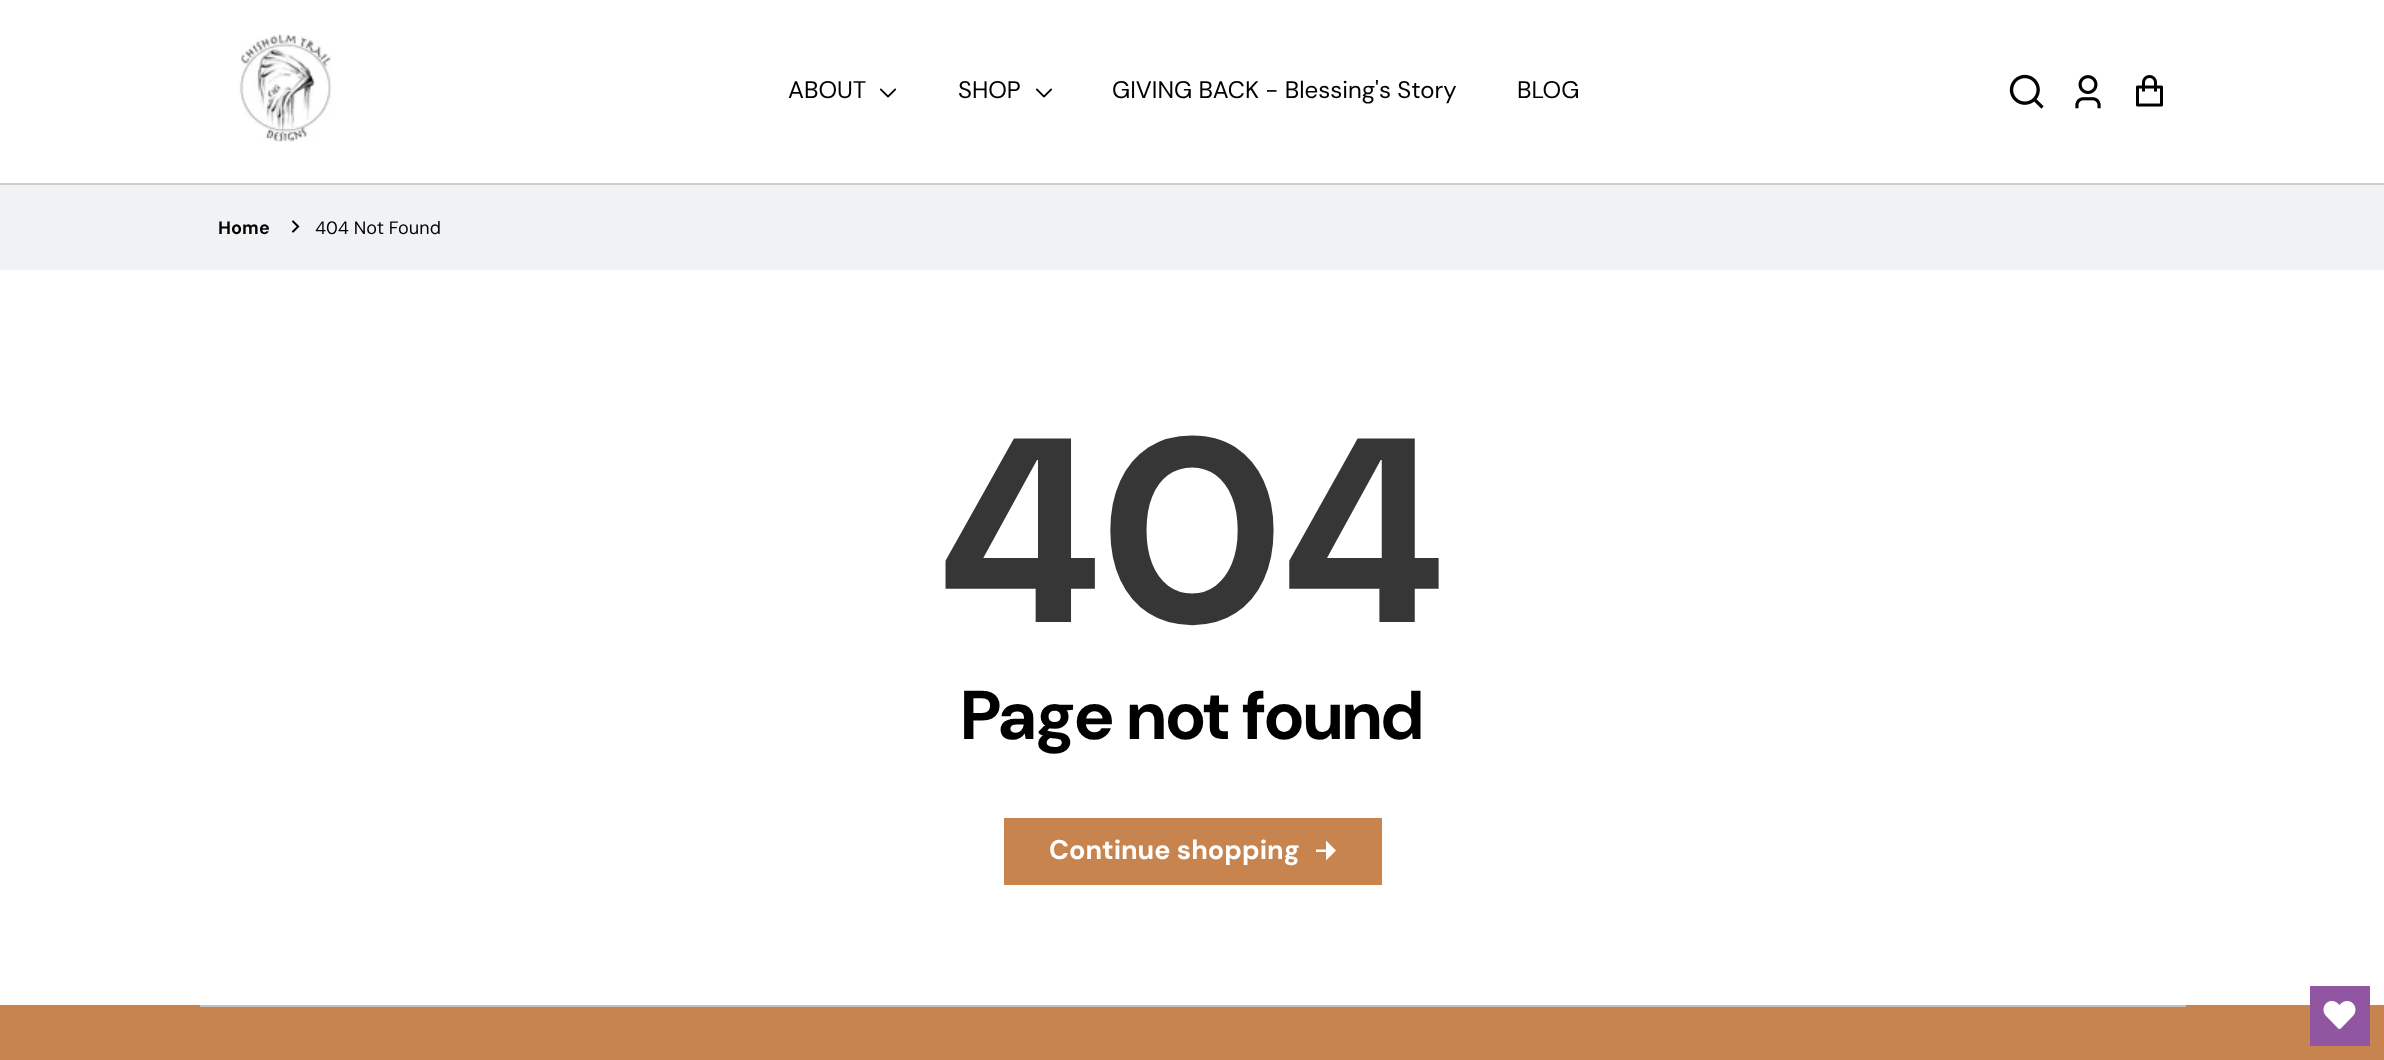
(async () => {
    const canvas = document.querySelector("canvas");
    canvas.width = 2384;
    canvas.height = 1060;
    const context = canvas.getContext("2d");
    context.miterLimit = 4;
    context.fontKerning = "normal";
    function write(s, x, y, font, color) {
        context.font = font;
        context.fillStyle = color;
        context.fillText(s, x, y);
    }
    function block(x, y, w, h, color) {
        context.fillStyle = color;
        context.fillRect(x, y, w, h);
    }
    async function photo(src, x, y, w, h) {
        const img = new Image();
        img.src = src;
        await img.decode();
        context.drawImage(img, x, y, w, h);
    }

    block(0, 0, 2384, 1060, "rgb(255, 255, 255)");
    block(0, 183, 2384, 2, "rgb(206, 206, 206)");
    await photo("media/1.png", 239, 34, 93, 108);
    write("ABOUT", 788, 98, "24px 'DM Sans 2'", "rgb(0, 0, 0)");
    await photo("media/2.png", 879, 88, 18, 10);
    write("SHOP", 958, 98, "24px 'DM Sans 2'", "rgb(0, 0, 0)");
    await photo("media/2.png", 1035, 88, 18, 10);
    write("GIVING BACK - Blessing's Story", 1112, 98, "24px 'DM Sans 2'", "rgb(0, 0, 0)");
    write("BLOG", 1517, 98, "24px 'DM Sans 2'", "rgb(0, 0, 0)");
    await photo("media/3.png", 2009, 74, 35, 35);
    await photo("media/4.png", 2075, 75, 26, 34);
    await photo("media/5.png", 2136, 75, 27, 32);
    block(0, 185, 2384, 85, "rgb(241, 242, 244)");
    write("Home", 218, 234, "bold 18px DM Sans", "rgb(0, 0, 0)");
    await photo("media/6.png", 291, 220, 9, 13);
    write("404 Not Found", 315, 234, "18px DM Sans", "rgb(0, 0, 0)");
    write("404", 939, 622, "bold 262px 'DM Sans 2'", "rgb(54, 54, 54)");
    write("Page not found", 961, 739, "bold 69px 'DM Sans 2'", "rgb(0, 0, 0)");
    block(1004, 818, 378, 67, "rgb(199, 132, 79)");
    write("Continue shopping", 1049, 859, "bold 27px 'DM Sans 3'", "rgb(255, 255, 255)");
    context.beginPath();
    context.moveTo(1326, 852);
    context.lineTo(1316, 852);
    context.lineTo(1316, 849.5);
    context.lineTo(1326, 849.5);
    context.lineTo(1326, 840.5);
    context.lineTo(1336, 850.5);
    context.lineTo(1326, 860.5);
    context.closePath();
    context.fill();
    block(0, 1005, 2384, 55, "rgb(199, 132, 79)");
    block(2310, 986, 60, 60, "rgb(144, 86, 162)");
    await photo("media/7.png", 2323, 1001, 33, 28);
    block(200, 1005, 1986, 2, "rgb(193, 193, 193)");
})();
